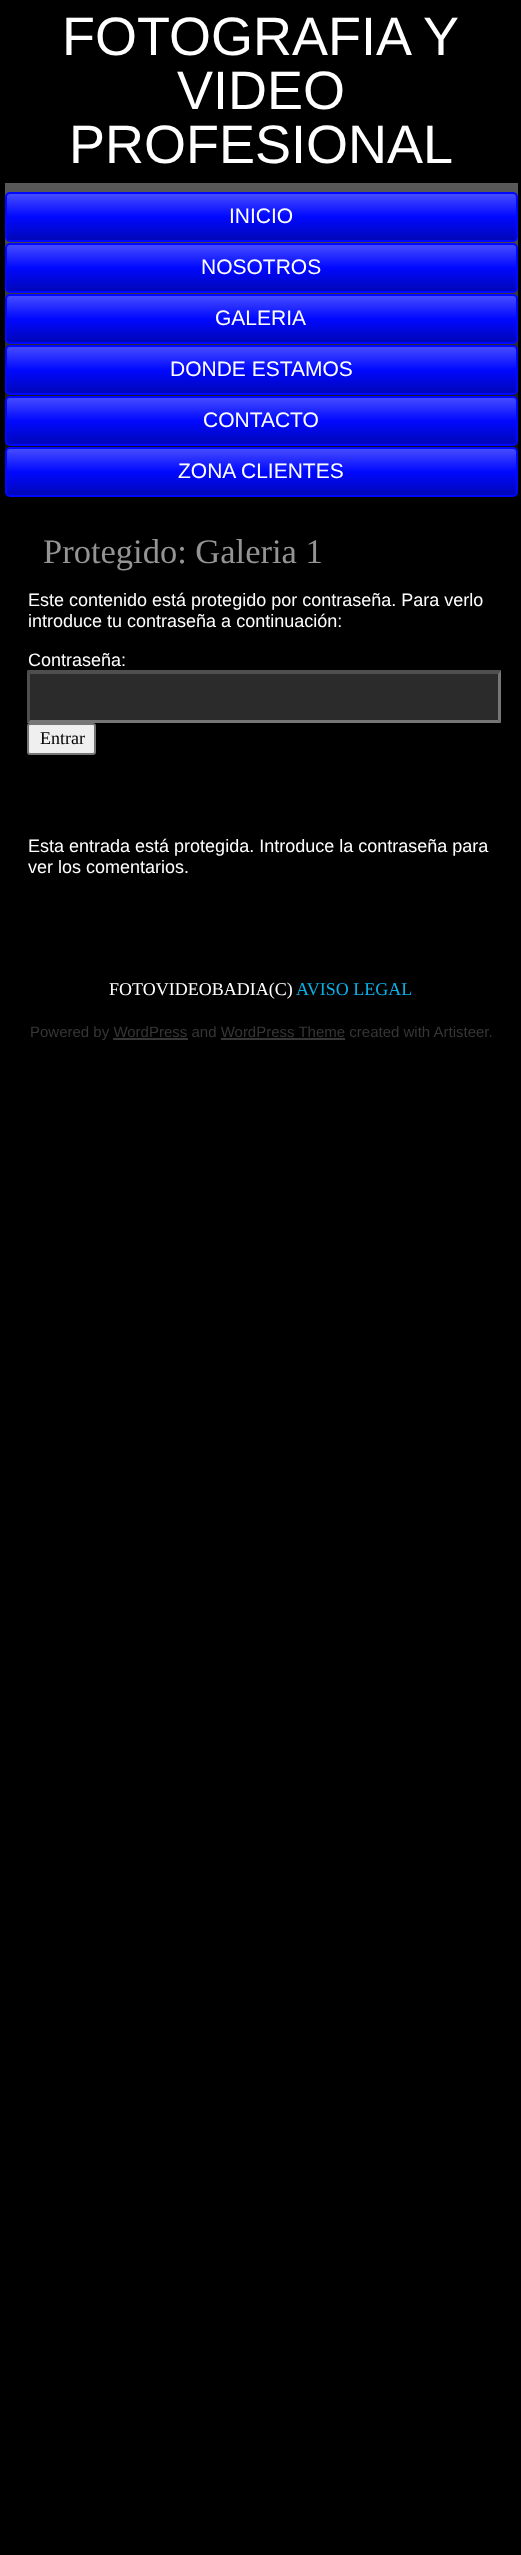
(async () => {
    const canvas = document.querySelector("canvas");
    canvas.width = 521;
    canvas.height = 2555;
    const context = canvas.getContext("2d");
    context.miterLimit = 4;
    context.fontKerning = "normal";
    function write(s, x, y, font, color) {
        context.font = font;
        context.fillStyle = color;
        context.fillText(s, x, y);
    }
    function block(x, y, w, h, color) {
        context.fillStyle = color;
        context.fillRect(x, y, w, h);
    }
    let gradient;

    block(0, 0, 521, 2555, "rgb(0, 0, 0)");
    write("FOTOGRAFIA Y", 62, 55, "54px Liberation Sans", "rgb(255, 255, 255)");
    write("VIDEO", 177, 109, "54px Liberation Sans", "rgb(255, 255, 255)");
    write("PROFESIONAL", 69, 163, "54px Liberation Sans", "rgb(255, 255, 255)");
    gradient = context.createLinearGradient(261, 183, 261, 506);
    gradient.addColorStop(0, "rgb(89, 89, 89)");
    gradient.addColorStop(1, "rgb(0, 0, 0)");
    context.fillStyle = gradient;
    context.fillRect(5, 183, 513, 314);
    gradient = context.createLinearGradient(261, 192, 261, 242);
    gradient.addColorStop(0, "rgb(76, 82, 255)");
    gradient.addColorStop(0.5, "rgb(0, 8, 255)");
    gradient.addColorStop(1, "rgb(0, 6, 178)");
    context.fillStyle = gradient;
    context.beginPath();
    context.roundRect(6, 193, 511, 48, 4);
    context.fill();
    context.strokeStyle = "rgb(0, 8, 255)";
    context.lineWidth = 2;
    context.stroke();
    write("INICIO", 229, 223, "21px Liberation Sans", "rgb(255, 255, 255)");
    gradient = context.createLinearGradient(261, 243, 261, 293);
    gradient.addColorStop(0, "rgb(76, 82, 255)");
    gradient.addColorStop(0.5, "rgb(0, 8, 255)");
    gradient.addColorStop(1, "rgb(0, 6, 178)");
    context.fillStyle = gradient;
    context.beginPath();
    context.roundRect(6, 244, 511, 48, 4);
    context.fill();
    context.stroke();
    write("NOSOTROS", 201, 274, "21px Liberation Sans", "rgb(255, 255, 255)");
    gradient = context.createLinearGradient(261, 294, 261, 344);
    gradient.addColorStop(0, "rgb(76, 82, 255)");
    gradient.addColorStop(0.5, "rgb(0, 8, 255)");
    gradient.addColorStop(1, "rgb(0, 6, 178)");
    context.fillStyle = gradient;
    context.beginPath();
    context.roundRect(6, 295, 511, 48, 4);
    context.fill();
    context.stroke();
    write("GALERIA", 215, 325, "21px Liberation Sans", "rgb(255, 255, 255)");
    gradient = context.createLinearGradient(261, 345, 261, 395);
    gradient.addColorStop(0, "rgb(76, 82, 255)");
    gradient.addColorStop(0.5, "rgb(0, 8, 255)");
    gradient.addColorStop(1, "rgb(0, 6, 178)");
    context.fillStyle = gradient;
    context.beginPath();
    context.roundRect(6, 346, 511, 48, 4);
    context.fill();
    context.stroke();
    write("DONDE ESTAMOS", 170, 376, "21px Liberation Sans", "rgb(255, 255, 255)");
    gradient = context.createLinearGradient(261, 396, 261, 446);
    gradient.addColorStop(0, "rgb(76, 82, 255)");
    gradient.addColorStop(0.5, "rgb(0, 8, 255)");
    gradient.addColorStop(1, "rgb(0, 6, 178)");
    context.fillStyle = gradient;
    context.beginPath();
    context.roundRect(6, 397, 511, 48, 4);
    context.fill();
    context.stroke();
    write("CONTACTO", 203, 427, "21px Liberation Sans", "rgb(255, 255, 255)");
    gradient = context.createLinearGradient(261, 447, 261, 497);
    gradient.addColorStop(0, "rgb(76, 82, 255)");
    gradient.addColorStop(0.5, "rgb(0, 8, 255)");
    gradient.addColorStop(1, "rgb(0, 6, 178)");
    context.fillStyle = gradient;
    context.beginPath();
    context.roundRect(6, 448, 511, 48, 4);
    context.fill();
    context.stroke();
    write("ZONA CLIENTES", 178, 478, "21px Liberation Sans", "rgb(255, 255, 255)");
    write("Protegido: Galeria 1", 43, 563, "34.5px Liberation Serif", "rgb(148, 148, 148)");
    write("Este contenido está protegido por contraseña. Para verlo", 28, 606, "18px Liberation Sans", "rgb(255, 255, 255)");
    write("introduce tu contraseña a continuación:", 28, 627, "18px Liberation Sans", "rgb(255, 255, 255)");
    write("Contraseña:", 28, 666, "18px Liberation Sans", "rgb(255, 255, 255)");
    block(27, 671, 474, 52, "rgb(43, 43, 43)");
    context.fillStyle = "rgb(79, 79, 79)";
    context.beginPath();
    context.moveTo(27, 670);
    context.lineTo(501, 670);
    context.lineTo(498, 674);
    context.lineTo(30, 674);
    context.closePath();
    context.fill();
    context.fillStyle = "rgb(118, 118, 118)";
    context.beginPath();
    context.moveTo(501, 670);
    context.lineTo(501, 723);
    context.lineTo(498, 720);
    context.lineTo(498, 674);
    context.closePath();
    context.fill();
    context.beginPath();
    context.moveTo(501, 723);
    context.lineTo(27, 723);
    context.lineTo(30, 720);
    context.lineTo(498, 720);
    context.closePath();
    context.fill();
    context.fillStyle = "rgb(79, 79, 79)";
    context.beginPath();
    context.moveTo(27, 723);
    context.lineTo(27, 670);
    context.lineTo(30, 674);
    context.lineTo(30, 720);
    context.closePath();
    context.fill();
    context.fillStyle = "rgb(239, 239, 239)";
    context.beginPath();
    context.roundRect(28, 724, 67, 30, 2);
    context.fill();
    context.strokeStyle = "rgb(118, 118, 118)";
    context.stroke();
    write("Entrar", 40, 744, "18px Liberation Serif", "rgb(0, 0, 0)");
    write("Esta entrada está protegida. Introduce la contraseña para", 28, 852, "18px Liberation Sans", "rgb(255, 255, 255)");
    write("ver los comentarios.", 28, 873, "18px Liberation Sans", "rgb(255, 255, 255)");
    write("FOTOVIDEOBADIA(C)", 109, 995, "18px Liberation Serif", "rgb(255, 255, 255)");
    write("AVISO LEGAL", 296, 995, "18px Liberation Serif", "rgb(10, 175, 230)");
    write("Powered by WordPress and WordPress Theme created with Artisteer.", 30, 1037, "15px Liberation Sans", "rgb(54, 54, 54)");
    block(113, 1038, 75, 2, "rgb(54, 54, 54)");
    block(221, 1038, 124, 2, "rgb(54, 54, 54)");
})();
